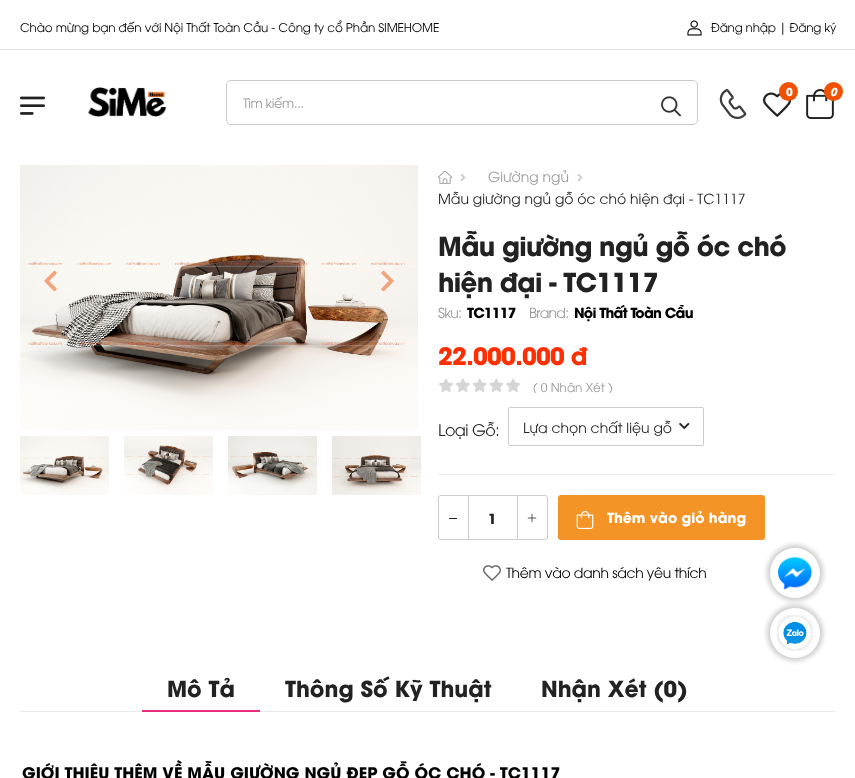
(async () => {
    const canvas = document.querySelector("canvas");
    canvas.width = 855;
    canvas.height = 778;
    const context = canvas.getContext("2d");
    context.miterLimit = 4;
    context.fontKerning = "normal";
    function write(s, x, y, font, color) {
        context.font = font;
        context.fillStyle = color;
        context.fillText(s, x, y);
    }
    function block(x, y, w, h, color) {
        context.fillStyle = color;
        context.fillRect(x, y, w, h);
    }
    function card(x, y, w, h, r, color) {
        context.fillStyle = color;
        context.beginPath();
        context.roundRect(x, y, w, h, r);
        context.fill();
    }
    async function photo(src, x, y, w, h) {
        const img = new Image();
        img.src = src;
        await img.decode();
        context.drawImage(img, x, y, w, h);
    }

    block(0, 0, 855, 778, "rgb(255, 255, 255)");
    block(0, 49, 855, 1, "rgb(225, 225, 225)");
    context.letterSpacing = "-0.15px";
    write("Chào mừng bạn đến với Nội Thất Toàn Cầu - Công ty cổ Phần SIMEHOME", 20, 32, "12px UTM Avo", "rgb(0, 0, 0)");
    await photo("media/1.png", 687, 20, 15, 16);
    context.letterSpacing = "-0.25px";
    write("Đăng nhập | Đăng ký", 711, 32, "12px UTM Avo", "rgb(0, 0, 0)");
    await photo("media/2.png", 719, 89, 28, 30);
    await photo("media/3.png", 763, 92, 28, 25);
    context.fillStyle = "rgb(239, 82, 4)";
    context.beginPath();
    context.arc(788.5, 91.5, 9.5, 0, Math.PI * 2);
    context.fill();
    context.letterSpacing = "-0.35px";
    write("0", 786, 96, "bold 11px UTM Avo", "rgb(255, 255, 255)");
    await photo("media/4.png", 806, 89, 28, 30);
    context.fillStyle = "rgb(239, 82, 4)";
    context.beginPath();
    context.arc(833.5, 91.5, 9.5, 0, Math.PI * 2);
    context.fill();
    write("0", 830, 96, "italic bold 11px UTM Avo", "rgb(255, 255, 255)");
    await photo("media/5.png", 20, 96, 25, 19);
    await photo("media/6.png", 88, 87, 79, 30);
    context.beginPath();
    context.roundRect(226.5, 80.5, 471, 44, 4.5);
    context.strokeStyle = "rgb(202, 202, 202)";
    context.stroke();
    write("Tìm kiếm...", 243, 108, "13px UTM Avo", "rgb(153, 153, 153)");
    await photo("media/7.png", 661, 96, 20, 21);
    await photo("media/8.png", 20, 165, 398, 265);
    await photo("media/9.png", 44, 270, 13, 22);
    await photo("media/10.png", 381, 270, 13, 22);
    await photo("media/11.png", 20, 436, 89, 59);
    await photo("media/12.png", 124, 436, 89, 59);
    await photo("media/13.png", 228, 436, 89, 59);
    await photo("media/14.png", 332, 436, 89, 59);
    await photo("media/15.png", 438, 170, 14, 14);
    await photo("media/16.png", 460, 173, 6, 9);
    context.letterSpacing = "0px";
    write("Giường ngủ", 488, 182, "14px UTM Avo", "rgb(153, 153, 153)");
    await photo("media/16.png", 577, 173, 6, 9);
    write("Mẫu giường ngủ gỗ óc chó hiện đại - TC1117", 438, 204, "14px UTM Avo", "rgb(34, 34, 34)");
    context.letterSpacing = "-0.65px";
    write("Mẫu giường ngủ gỗ óc chó", 438, 256, "bold 26px UTM Avo", "rgb(34, 34, 34)");
    write("hiện đại - TC1117", 438, 292, "bold 26px UTM Avo", "rgb(34, 34, 34)");
    context.letterSpacing = "-0.75px";
    write("Sku:", 438, 318, "14px UTM Avo", "rgb(153, 153, 153)");
    write("TC1117", 467, 318, "bold 14px UTM Avo", "rgb(0, 0, 0)");
    write("Brand:", 529, 318, "14px UTM Avo", "rgb(153, 153, 153)");
    context.save();
    context.beginPath();
    context.rect(438, 305, 397, 62);
    context.clip();
    write("Nội Thất Toàn Cầu", 574, 318, "bold 14px UTM Avo", "rgb(0, 0, 0)");
    context.restore();
    write("22.000.000 đ", 438, 365, "bold 24px UTM Avo", "rgb(253, 48, 3)");
    await photo("media/17.png", 439, 378, 81, 14);
    context.save();
    context.beginPath();
    context.rect(533, 380, 79, 13);
    context.clip();
    context.letterSpacing = "0px";
    write("( 0 Nhận Xét )", 533, 392, "12px UTM Avo", "rgb(153, 153, 153)");
    context.restore();
    context.letterSpacing = "-0.5px";
    write("Loại Gỗ:", 438, 436, "16px UTM Avo", "rgb(34, 34, 34)");
    await photo("media/18.png", 679, 422, 11, 8);
    context.beginPath();
    context.roundRect(508.5, 407.5, 195, 38, 1.5);
    context.strokeStyle = "rgb(204, 204, 204)";
    context.stroke();
    context.letterSpacing = "0px";
    write("Lựa chọn chất liệu gỗ", 523, 433, "14px UTM Avo", "rgb(34, 34, 34)");
    block(438, 474, 397, 1, "rgb(238, 238, 238)");
    context.beginPath();
    context.roundRect(438.5, 495.5, 30, 44, [2.5, 0, 0, 2.5]);
    context.stroke();
    block(449, 518, 8, 1, "rgb(34, 34, 34)");
    block(469, 495, 48, 1, "rgb(204, 204, 204)");
    block(469, 539, 48, 1, "rgb(204, 204, 204)");
    write("1", 488, 524, "bold 14px UTM Avo", "rgb(34, 34, 34)");
    context.beginPath();
    context.roundRect(517.5, 495.5, 30, 44, [0, 2.5, 2.5, 0]);
    context.stroke();
    await photo("media/19.png", 527, 513, 10, 10);
    card(558, 495, 207, 45, 3, "rgb(244, 148, 38)");
    await photo("media/20.png", 576, 511, 18, 18);
    write("Thêm vào giỏ hàng", 607, 523, "bold 14px UTM Avo", "rgb(255, 255, 255)");
    await photo("media/21.png", 483, 565, 18, 16);
    context.letterSpacing = "-0.35px";
    write("Thêm vào danh sách yêu thích", 506, 578, "14px UTM Avo", "rgb(0, 0, 0)");
    block(20, 711, 815, 1, "rgb(235, 235, 235)");
    block(142, 710, 118, 2, "rgb(232, 45, 124)");
    context.letterSpacing = "0px";
    write("Mô Tả", 167, 697, "bold 22px UTM Avo", "rgb(34, 34, 34)");
    write("Thông Số Kỹ Thuật", 285, 697, "bold 22px UTM Avo", "rgb(34, 34, 34)");
    write("Nhận Xét (0)", 541, 697, "bold 22px UTM Avo", "rgb(34, 34, 34)");
    write("GIỚI THIỆU THÊM VỀ MẪU GIƯỜNG NGỦ ĐẸP GỖ ÓC CHÓ - TC1117", 22, 779, "bold 16px UTM Avo", "rgb(0, 0, 0)");
    context.fillStyle = "rgba(0, 0, 0, 0.2)";
    context.filter = "blur(2.5px)";
    context.beginPath();
    context.roundRect(767, 545, 56, 56, 28);
    context.fill();
    context.filter = "none";
    context.fillStyle = "rgb(255, 255, 255)";
    context.beginPath();
    context.arc(795, 573, 25, 0, Math.PI * 2);
    context.fill();
    await photo("media/22.png", 778, 556, 35, 34);
    context.fillStyle = "rgba(0, 0, 0, 0.2)";
    context.filter = "blur(2.5px)";
    context.beginPath();
    context.roundRect(767, 605, 56, 56, 28);
    context.fill();
    context.filter = "none";
    context.fillStyle = "rgb(255, 255, 255)";
    context.beginPath();
    context.arc(795, 633, 25, 0, Math.PI * 2);
    context.fill();
    await photo("media/23.png", 777, 615, 36, 36);
})();
